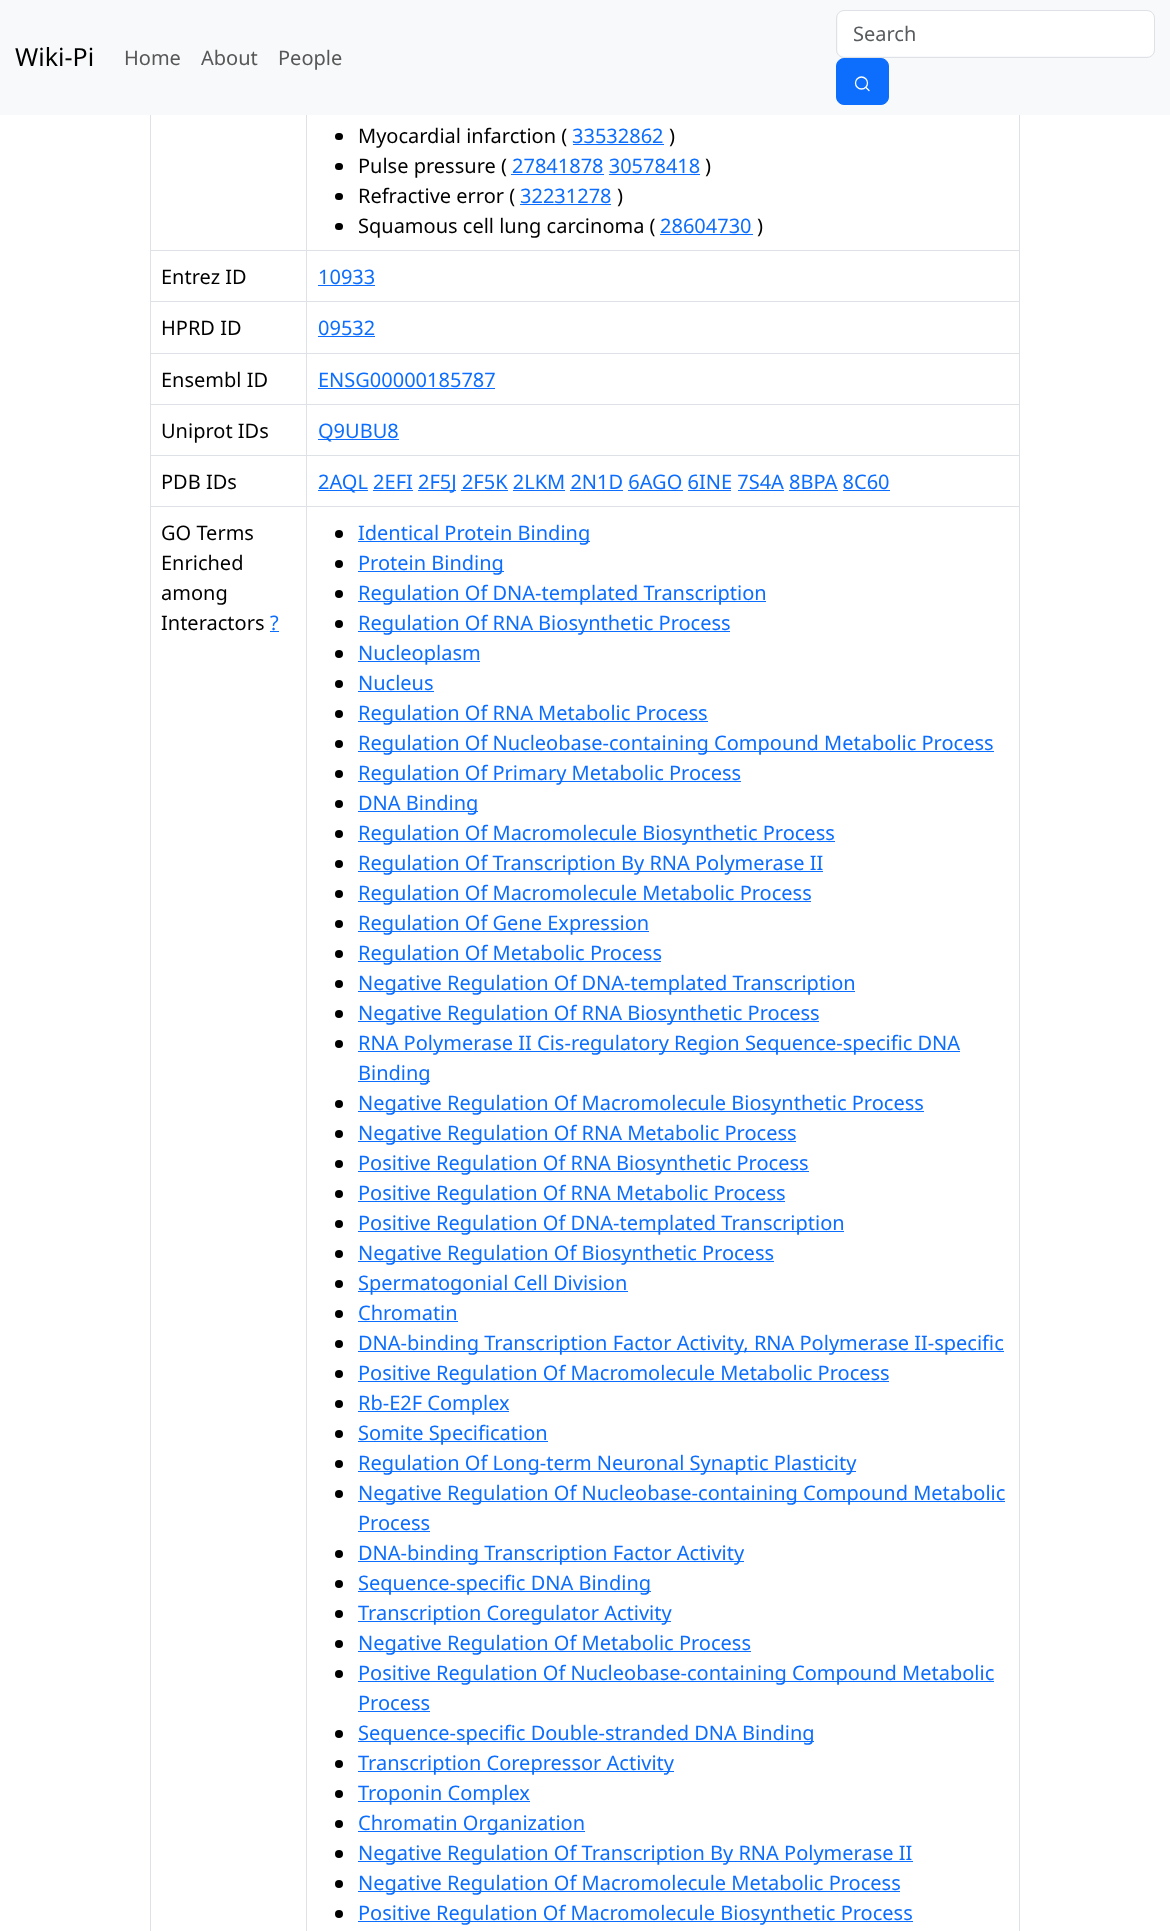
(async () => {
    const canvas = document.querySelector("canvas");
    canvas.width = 1170;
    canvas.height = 1931;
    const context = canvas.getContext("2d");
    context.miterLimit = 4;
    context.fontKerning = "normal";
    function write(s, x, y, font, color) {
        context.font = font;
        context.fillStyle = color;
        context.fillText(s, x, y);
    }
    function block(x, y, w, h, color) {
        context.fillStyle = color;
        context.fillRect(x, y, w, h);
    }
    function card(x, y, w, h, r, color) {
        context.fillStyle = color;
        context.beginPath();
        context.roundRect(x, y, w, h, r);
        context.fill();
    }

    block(0, 0, 1170, 1931, "rgb(255, 255, 255)");
    block(0, 0, 1170, 115, "rgb(248, 249, 250)");
    write("Wiki-Pi", 15, 66, "25px Noto Sans", "rgb(0, 0, 0)");
    card(838, 11, 316, 45, 6, "rgb(255, 255, 255)");
    context.beginPath();
    context.roundRect(836.5, 10.5, 318, 47, 7.5);
    context.strokeStyle = "rgb(222, 226, 230)";
    context.stroke();
    write("Search", 853, 41, "20px Noto Sans", "rgb(89, 92, 95)");
    context.fillStyle = "rgb(13, 110, 253)";
    context.beginPath();
    context.roundRect(836.5, 58.5, 52, 46, 7.5);
    context.fill();
    context.strokeStyle = "rgb(13, 110, 253)";
    context.stroke();
    context.beginPath();
    context.arc(861.5, 83, 6, 0, Math.PI * 2);
    context.strokeStyle = "rgb(255, 255, 255)";
    context.lineWidth = 1.3;
    context.stroke();
    context.beginPath();
    context.moveTo(869, 90.5);
    context.lineTo(866, 87.5);
    context.lineCap = "round";
    context.stroke();
    write("Home", 124, 65, "20px Noto Sans", "rgb(87, 87, 88)");
    write("About", 201, 65, "20px Noto Sans", "rgb(87, 87, 88)");
    write("People", 278, 65, "20px Noto Sans", "rgb(87, 87, 88)");
    card(335, 133, 8, 7, 3.5, "rgb(0, 0, 0)");
    write("Myocardial infarction (", 358, 143, "20px Noto Sans", "rgb(0, 0, 0)");
    write("33532862", 572, 143, "20px Noto Sans", "rgb(13, 110, 253)");
    block(573, 144, 91, 1, "rgb(13, 110, 253)");
    write(")", 669, 143, "20px Noto Sans", "rgb(0, 0, 0)");
    card(335, 163, 8, 7, 3.5, "rgb(0, 0, 0)");
    write("Pulse pressure (", 358, 173, "20px Noto Sans", "rgb(0, 0, 0)");
    write("27841878 30578418", 512, 173, "20px Noto Sans", "rgb(13, 110, 253)");
    block(511, 174, 93, 1, "rgb(13, 110, 253)");
    write(")", 705, 173, "20px Noto Sans", "rgb(0, 0, 0)");
    block(609, 174, 91, 1, "rgb(13, 110, 253)");
    card(335, 193, 8, 7, 3.5, "rgb(0, 0, 0)");
    write("Refractive error (", 358, 203, "20px Noto Sans", "rgb(0, 0, 0)");
    write("32231278", 520, 203, "20px Noto Sans", "rgb(13, 110, 253)");
    block(520, 204, 91, 1, "rgb(13, 110, 253)");
    write(")", 617, 203, "20px Noto Sans", "rgb(0, 0, 0)");
    card(335, 223, 8, 7, 3.5, "rgb(0, 0, 0)");
    write("Squamous cell lung carcinoma (", 358, 233, "20px Noto Sans", "rgb(0, 0, 0)");
    write("28604730", 660, 233, "20px Noto Sans", "rgb(13, 110, 253)");
    block(660, 234, 93, 1, "rgb(13, 110, 253)");
    write(")", 757, 233, "20px Noto Sans", "rgb(0, 0, 0)");
    block(150, 250, 870, 1, "rgb(222, 226, 230)");
    write("Entrez ID", 161, 284, "20px Noto Sans", "rgb(0, 0, 0)");
    write("10933", 318, 284, "20px Noto Sans", "rgb(13, 110, 253)");
    block(318, 285, 57, 1, "rgb(13, 110, 253)");
    block(150, 301, 870, 1, "rgb(222, 226, 230)");
    write("HPRD ID", 161, 335, "20px Noto Sans", "rgb(0, 0, 0)");
    write("09532", 318, 335, "20px Noto Sans", "rgb(13, 110, 253)");
    block(318, 336, 57, 1, "rgb(13, 110, 253)");
    block(150, 353, 870, 1, "rgb(222, 226, 230)");
    write("Ensembl ID", 161, 387, "20px Noto Sans", "rgb(0, 0, 0)");
    write("ENSG00000185787", 318, 387, "20px Noto Sans", "rgb(13, 110, 253)");
    block(318, 388, 177, 1, "rgb(13, 110, 253)");
    block(150, 404, 870, 1, "rgb(222, 226, 230)");
    write("Uniprot IDs", 161, 438, "20px Noto Sans", "rgb(0, 0, 0)");
    block(318, 439, 81, 1, "rgb(13, 110, 253)");
    write("Q9UBU8", 318, 438, "20px Noto Sans", "rgb(13, 110, 253)");
    block(150, 455, 870, 1, "rgb(222, 226, 230)");
    write("PDB IDs", 161, 489, "20px Noto Sans", "rgb(0, 0, 0)");
    block(318, 490, 50, 1, "rgb(13, 110, 253)");
    write("2AQL 2EFI", 318, 489, "20px Noto Sans", "rgb(13, 110, 253)");
    block(418, 490, 38, 1, "rgb(13, 110, 253)");
    write("2F5J 2F5K 2LKM 2N1D 6AGO 6INE 7S4A 8BPA 8C60", 418, 489, "20px Noto Sans", "rgb(13, 110, 253)");
    block(373, 490, 40, 1, "rgb(13, 110, 253)");
    block(461, 490, 47, 1, "rgb(13, 110, 253)");
    block(513, 490, 52, 1, "rgb(13, 110, 253)");
    block(570, 490, 53, 1, "rgb(13, 110, 253)");
    block(628, 490, 55, 1, "rgb(13, 110, 253)");
    block(688, 490, 43, 1, "rgb(13, 110, 253)");
    block(738, 490, 46, 1, "rgb(13, 110, 253)");
    block(789, 490, 49, 1, "rgb(13, 110, 253)");
    block(843, 490, 47, 1, "rgb(13, 110, 253)");
    block(150, 506, 870, 1, "rgb(222, 226, 230)");
    block(150, 115, 1, 1816, "rgb(222, 226, 230)");
    write("GO Terms", 161, 540, "20px Noto Sans", "rgb(0, 0, 0)");
    write("Enriched", 161, 570, "20px Noto Sans", "rgb(0, 0, 0)");
    write("among", 161, 600, "20px Noto Sans", "rgb(0, 0, 0)");
    write("Interactors", 161, 630, "20px Noto Sans", "rgb(0, 0, 0)");
    write("?", 270, 630, "20px Noto Sans", "rgb(13, 110, 253)");
    block(270, 631, 9, 1, "rgb(13, 110, 253)");
    block(1019, 115, 1, 1816, "rgb(222, 226, 230)");
    block(306, 115, 1, 1816, "rgb(222, 226, 230)");
    context.fillStyle = "rgb(0, 0, 0)";
    context.beginPath();
    context.arc(339, 534, 4, 0, Math.PI * 2);
    context.fill();
    block(358, 541, 232, 1, "rgb(13, 110, 253)");
    write("Identical Protein Binding", 358, 540, "20px Noto Sans", "rgb(13, 110, 253)");
    context.fillStyle = "rgb(0, 0, 0)";
    context.beginPath();
    context.arc(339, 564, 4, 0, Math.PI * 2);
    context.fill();
    block(358, 571, 146, 1, "rgb(13, 110, 253)");
    write("Protein Binding", 358, 570, "20px Noto Sans", "rgb(13, 110, 253)");
    context.fillStyle = "rgb(0, 0, 0)";
    context.beginPath();
    context.arc(339, 594, 4, 0, Math.PI * 2);
    context.fill();
    block(358, 601, 408, 1, "rgb(13, 110, 253)");
    write("Regulation Of DNA-templated Transcription", 358, 600, "20px Noto Sans", "rgb(13, 110, 253)");
    context.fillStyle = "rgb(0, 0, 0)";
    context.beginPath();
    context.arc(339, 624, 4, 0, Math.PI * 2);
    context.fill();
    block(358, 631, 372, 1, "rgb(13, 110, 253)");
    write("Regulation Of RNA Biosynthetic Process", 358, 630, "20px Noto Sans", "rgb(13, 110, 253)");
    context.fillStyle = "rgb(0, 0, 0)";
    context.beginPath();
    context.arc(339, 654, 4, 0, Math.PI * 2);
    context.fill();
    block(358, 661, 122, 1, "rgb(13, 110, 253)");
    write("Nucleoplasm", 358, 660, "20px Noto Sans", "rgb(13, 110, 253)");
    context.fillStyle = "rgb(0, 0, 0)";
    context.beginPath();
    context.arc(339, 684, 4, 0, Math.PI * 2);
    context.fill();
    write("Nucleus", 358, 690, "20px Noto Sans", "rgb(13, 110, 253)");
    block(358, 691, 76, 1, "rgb(13, 110, 253)");
    context.fillStyle = "rgb(0, 0, 0)";
    context.beginPath();
    context.arc(339, 714, 4, 0, Math.PI * 2);
    context.fill();
    block(358, 721, 350, 1, "rgb(13, 110, 253)");
    write("Regulation Of RNA Metabolic Process", 358, 720, "20px Noto Sans", "rgb(13, 110, 253)");
    context.fillStyle = "rgb(0, 0, 0)";
    context.beginPath();
    context.arc(339, 744, 4, 0, Math.PI * 2);
    context.fill();
    block(358, 751, 636, 1, "rgb(13, 110, 253)");
    write("Regulation Of Nucleobase-containing Compound Metabolic Process", 358, 750, "20px Noto Sans", "rgb(13, 110, 253)");
    context.fillStyle = "rgb(0, 0, 0)";
    context.beginPath();
    context.arc(339, 774, 4, 0, Math.PI * 2);
    context.fill();
    block(358, 781, 383, 1, "rgb(13, 110, 253)");
    write("Regulation Of Primary Metabolic Process", 358, 780, "20px Noto Sans", "rgb(13, 110, 253)");
    context.fillStyle = "rgb(0, 0, 0)";
    context.beginPath();
    context.arc(339, 804, 4, 0, Math.PI * 2);
    context.fill();
    block(358, 811, 120, 1, "rgb(13, 110, 253)");
    write("DNA Binding", 358, 810, "20px Noto Sans", "rgb(13, 110, 253)");
    context.fillStyle = "rgb(0, 0, 0)";
    context.beginPath();
    context.arc(339, 834, 4, 0, Math.PI * 2);
    context.fill();
    block(358, 841, 477, 1, "rgb(13, 110, 253)");
    write("Regulation Of Macromolecule Biosynthetic Process", 358, 840, "20px Noto Sans", "rgb(13, 110, 253)");
    context.fillStyle = "rgb(0, 0, 0)";
    context.beginPath();
    context.arc(339, 864, 4, 0, Math.PI * 2);
    context.fill();
    block(358, 871, 465, 1, "rgb(13, 110, 253)");
    write("Regulation Of Transcription By RNA Polymerase II", 358, 870, "20px Noto Sans", "rgb(13, 110, 253)");
    context.fillStyle = "rgb(0, 0, 0)";
    context.beginPath();
    context.arc(339, 894, 4, 0, Math.PI * 2);
    context.fill();
    block(358, 901, 453, 1, "rgb(13, 110, 253)");
    write("Regulation Of Macromolecule Metabolic Process", 358, 900, "20px Noto Sans", "rgb(13, 110, 253)");
    context.fillStyle = "rgb(0, 0, 0)";
    context.beginPath();
    context.arc(339, 924, 4, 0, Math.PI * 2);
    context.fill();
    block(358, 931, 291, 1, "rgb(13, 110, 253)");
    write("Regulation Of Gene Expression", 358, 930, "20px Noto Sans", "rgb(13, 110, 253)");
    context.fillStyle = "rgb(0, 0, 0)";
    context.beginPath();
    context.arc(339, 954, 4, 0, Math.PI * 2);
    context.fill();
    block(358, 961, 303, 1, "rgb(13, 110, 253)");
    write("Regulation Of Metabolic Process", 358, 960, "20px Noto Sans", "rgb(13, 110, 253)");
    context.fillStyle = "rgb(0, 0, 0)";
    context.beginPath();
    context.arc(339, 984, 4, 0, Math.PI * 2);
    context.fill();
    block(358, 991, 497, 1, "rgb(13, 110, 253)");
    write("Negative Regulation Of DNA-templated Transcription", 358, 990, "20px Noto Sans", "rgb(13, 110, 253)");
    context.fillStyle = "rgb(0, 0, 0)";
    context.beginPath();
    context.arc(339, 1014, 4, 0, Math.PI * 2);
    context.fill();
    block(358, 1021, 461, 1, "rgb(13, 110, 253)");
    write("Negative Regulation Of RNA Biosynthetic Process", 358, 1020, "20px Noto Sans", "rgb(13, 110, 253)");
    context.fillStyle = "rgb(0, 0, 0)";
    context.beginPath();
    context.arc(339, 1044, 4, 0, Math.PI * 2);
    context.fill();
    block(358, 1051, 602, 1, "rgb(13, 110, 253)");
    write("RNA Polymerase II Cis-regulatory Region Sequence-specific DNA", 358, 1050, "20px Noto Sans", "rgb(13, 110, 253)");
    block(358, 1081, 72, 1, "rgb(13, 110, 253)");
    write("Binding", 358, 1080, "20px Noto Sans", "rgb(13, 110, 253)");
    context.fillStyle = "rgb(0, 0, 0)";
    context.beginPath();
    context.arc(339, 1104, 4, 0, Math.PI * 2);
    context.fill();
    block(358, 1111, 566, 1, "rgb(13, 110, 253)");
    write("Negative Regulation Of Macromolecule Biosynthetic Process", 358, 1110, "20px Noto Sans", "rgb(13, 110, 253)");
    context.fillStyle = "rgb(0, 0, 0)";
    context.beginPath();
    context.arc(339, 1134, 4, 0, Math.PI * 2);
    context.fill();
    block(358, 1141, 438, 1, "rgb(13, 110, 253)");
    write("Negative Regulation Of RNA Metabolic Process", 358, 1140, "20px Noto Sans", "rgb(13, 110, 253)");
    context.fillStyle = "rgb(0, 0, 0)";
    context.beginPath();
    context.arc(339, 1164, 4, 0, Math.PI * 2);
    context.fill();
    block(358, 1171, 451, 1, "rgb(13, 110, 253)");
    write("Positive Regulation Of RNA Biosynthetic Process", 358, 1170, "20px Noto Sans", "rgb(13, 110, 253)");
    context.fillStyle = "rgb(0, 0, 0)";
    context.beginPath();
    context.arc(339, 1194, 4, 0, Math.PI * 2);
    context.fill();
    block(358, 1201, 427, 1, "rgb(13, 110, 253)");
    write("Positive Regulation Of RNA Metabolic Process", 358, 1200, "20px Noto Sans", "rgb(13, 110, 253)");
    context.fillStyle = "rgb(0, 0, 0)";
    context.beginPath();
    context.arc(339, 1224, 4, 0, Math.PI * 2);
    context.fill();
    block(358, 1231, 486, 1, "rgb(13, 110, 253)");
    write("Positive Regulation Of DNA-templated Transcription", 358, 1230, "20px Noto Sans", "rgb(13, 110, 253)");
    context.fillStyle = "rgb(0, 0, 0)";
    context.beginPath();
    context.arc(339, 1254, 4, 0, Math.PI * 2);
    context.fill();
    block(358, 1261, 416, 1, "rgb(13, 110, 253)");
    write("Negative Regulation Of Biosynthetic Process", 358, 1260, "20px Noto Sans", "rgb(13, 110, 253)");
    context.fillStyle = "rgb(0, 0, 0)";
    context.beginPath();
    context.arc(339, 1284, 4, 0, Math.PI * 2);
    context.fill();
    block(358, 1291, 270, 1, "rgb(13, 110, 253)");
    write("Spermatogonial Cell Division", 358, 1290, "20px Noto Sans", "rgb(13, 110, 253)");
    context.fillStyle = "rgb(0, 0, 0)";
    context.beginPath();
    context.arc(339, 1314, 4, 0, Math.PI * 2);
    context.fill();
    write("Chromatin", 358, 1320, "20px Noto Sans", "rgb(13, 110, 253)");
    block(358, 1321, 100, 1, "rgb(13, 110, 253)");
    context.fillStyle = "rgb(0, 0, 0)";
    context.beginPath();
    context.arc(339, 1344, 4, 0, Math.PI * 2);
    context.fill();
    block(358, 1351, 646, 1, "rgb(13, 110, 253)");
    write("DNA-binding Transcription Factor Activity, RNA Polymerase II-specific", 358, 1350, "20px Noto Sans", "rgb(13, 110, 253)");
    context.fillStyle = "rgb(0, 0, 0)";
    context.beginPath();
    context.arc(339, 1374, 4, 0, Math.PI * 2);
    context.fill();
    block(358, 1381, 531, 1, "rgb(13, 110, 253)");
    write("Positive Regulation Of Macromolecule Metabolic Process", 358, 1380, "20px Noto Sans", "rgb(13, 110, 253)");
    context.fillStyle = "rgb(0, 0, 0)";
    context.beginPath();
    context.arc(339, 1404, 4, 0, Math.PI * 2);
    context.fill();
    block(358, 1411, 151, 1, "rgb(13, 110, 253)");
    write("Rb-E2F Complex", 358, 1410, "20px Noto Sans", "rgb(13, 110, 253)");
    context.fillStyle = "rgb(0, 0, 0)";
    context.beginPath();
    context.arc(339, 1434, 4, 0, Math.PI * 2);
    context.fill();
    block(358, 1441, 190, 1, "rgb(13, 110, 253)");
    write("Somite Specification", 358, 1440, "20px Noto Sans", "rgb(13, 110, 253)");
    context.fillStyle = "rgb(0, 0, 0)";
    context.beginPath();
    context.arc(339, 1464, 4, 0, Math.PI * 2);
    context.fill();
    block(358, 1471, 498, 1, "rgb(13, 110, 253)");
    write("Regulation Of Long-term Neuronal Synaptic Plasticity", 358, 1470, "20px Noto Sans", "rgb(13, 110, 253)");
    context.fillStyle = "rgb(0, 0, 0)";
    context.beginPath();
    context.arc(339, 1494, 4, 0, Math.PI * 2);
    context.fill();
    block(358, 1501, 647, 1, "rgb(13, 110, 253)");
    write("Negative Regulation Of Nucleobase-containing Compound Metabolic", 358, 1500, "20px Noto Sans", "rgb(13, 110, 253)");
    write("Process", 358, 1530, "20px Noto Sans", "rgb(13, 110, 253)");
    block(358, 1531, 72, 1, "rgb(13, 110, 253)");
    context.fillStyle = "rgb(0, 0, 0)";
    context.beginPath();
    context.arc(339, 1554, 4, 0, Math.PI * 2);
    context.fill();
    block(358, 1561, 386, 1, "rgb(13, 110, 253)");
    write("DNA-binding Transcription Factor Activity", 358, 1560, "20px Noto Sans", "rgb(13, 110, 253)");
    context.fillStyle = "rgb(0, 0, 0)";
    context.beginPath();
    context.arc(339, 1584, 4, 0, Math.PI * 2);
    context.fill();
    block(358, 1591, 293, 1, "rgb(13, 110, 253)");
    write("Sequence-specific DNA Binding", 358, 1590, "20px Noto Sans", "rgb(13, 110, 253)");
    context.fillStyle = "rgb(0, 0, 0)";
    context.beginPath();
    context.arc(339, 1614, 4, 0, Math.PI * 2);
    context.fill();
    block(358, 1621, 313, 1, "rgb(13, 110, 253)");
    write("Transcription Coregulator Activity", 358, 1620, "20px Noto Sans", "rgb(13, 110, 253)");
    context.fillStyle = "rgb(0, 0, 0)";
    context.beginPath();
    context.arc(339, 1644, 4, 0, Math.PI * 2);
    context.fill();
    block(358, 1651, 393, 1, "rgb(13, 110, 253)");
    write("Negative Regulation Of Metabolic Process", 358, 1650, "20px Noto Sans", "rgb(13, 110, 253)");
    context.fillStyle = "rgb(0, 0, 0)";
    context.beginPath();
    context.arc(339, 1674, 4, 0, Math.PI * 2);
    context.fill();
    block(358, 1681, 636, 1, "rgb(13, 110, 253)");
    write("Positive Regulation Of Nucleobase-containing Compound Metabolic", 358, 1680, "20px Noto Sans", "rgb(13, 110, 253)");
    write("Process", 358, 1710, "20px Noto Sans", "rgb(13, 110, 253)");
    block(358, 1711, 72, 1, "rgb(13, 110, 253)");
    context.fillStyle = "rgb(0, 0, 0)";
    context.beginPath();
    context.arc(339, 1734, 4, 0, Math.PI * 2);
    context.fill();
    block(358, 1741, 456, 1, "rgb(13, 110, 253)");
    write("Sequence-specific Double-stranded DNA Binding", 358, 1740, "20px Noto Sans", "rgb(13, 110, 253)");
    context.fillStyle = "rgb(0, 0, 0)";
    context.beginPath();
    context.arc(339, 1764, 4, 0, Math.PI * 2);
    context.fill();
    block(358, 1771, 316, 1, "rgb(13, 110, 253)");
    write("Transcription Corepressor Activity", 358, 1770, "20px Noto Sans", "rgb(13, 110, 253)");
    context.fillStyle = "rgb(0, 0, 0)";
    context.beginPath();
    context.arc(339, 1794, 4, 0, Math.PI * 2);
    context.fill();
    block(358, 1801, 172, 1, "rgb(13, 110, 253)");
    write("Troponin Complex", 358, 1800, "20px Noto Sans", "rgb(13, 110, 253)");
    context.fillStyle = "rgb(0, 0, 0)";
    context.beginPath();
    context.arc(339, 1824, 4, 0, Math.PI * 2);
    context.fill();
    block(358, 1831, 227, 1, "rgb(13, 110, 253)");
    write("Chromatin Organization", 358, 1830, "20px Noto Sans", "rgb(13, 110, 253)");
    context.fillStyle = "rgb(0, 0, 0)";
    context.beginPath();
    context.arc(339, 1854, 4, 0, Math.PI * 2);
    context.fill();
    block(358, 1861, 555, 1, "rgb(13, 110, 253)");
    write("Negative Regulation Of Transcription By RNA Polymerase II", 358, 1860, "20px Noto Sans", "rgb(13, 110, 253)");
    context.fillStyle = "rgb(0, 0, 0)";
    context.beginPath();
    context.arc(339, 1884, 4, 0, Math.PI * 2);
    context.fill();
    block(358, 1891, 542, 1, "rgb(13, 110, 253)");
    write("Negative Regulation Of Macromolecule Metabolic Process", 358, 1890, "20px Noto Sans", "rgb(13, 110, 253)");
    context.fillStyle = "rgb(0, 0, 0)";
    context.beginPath();
    context.arc(339, 1914, 4, 0, Math.PI * 2);
    context.fill();
    block(358, 1921, 555, 1, "rgb(13, 110, 253)");
    write("Positive Regulation Of Macromolecule Biosynthetic Process", 358, 1920, "20px Noto Sans", "rgb(13, 110, 253)");
})();
